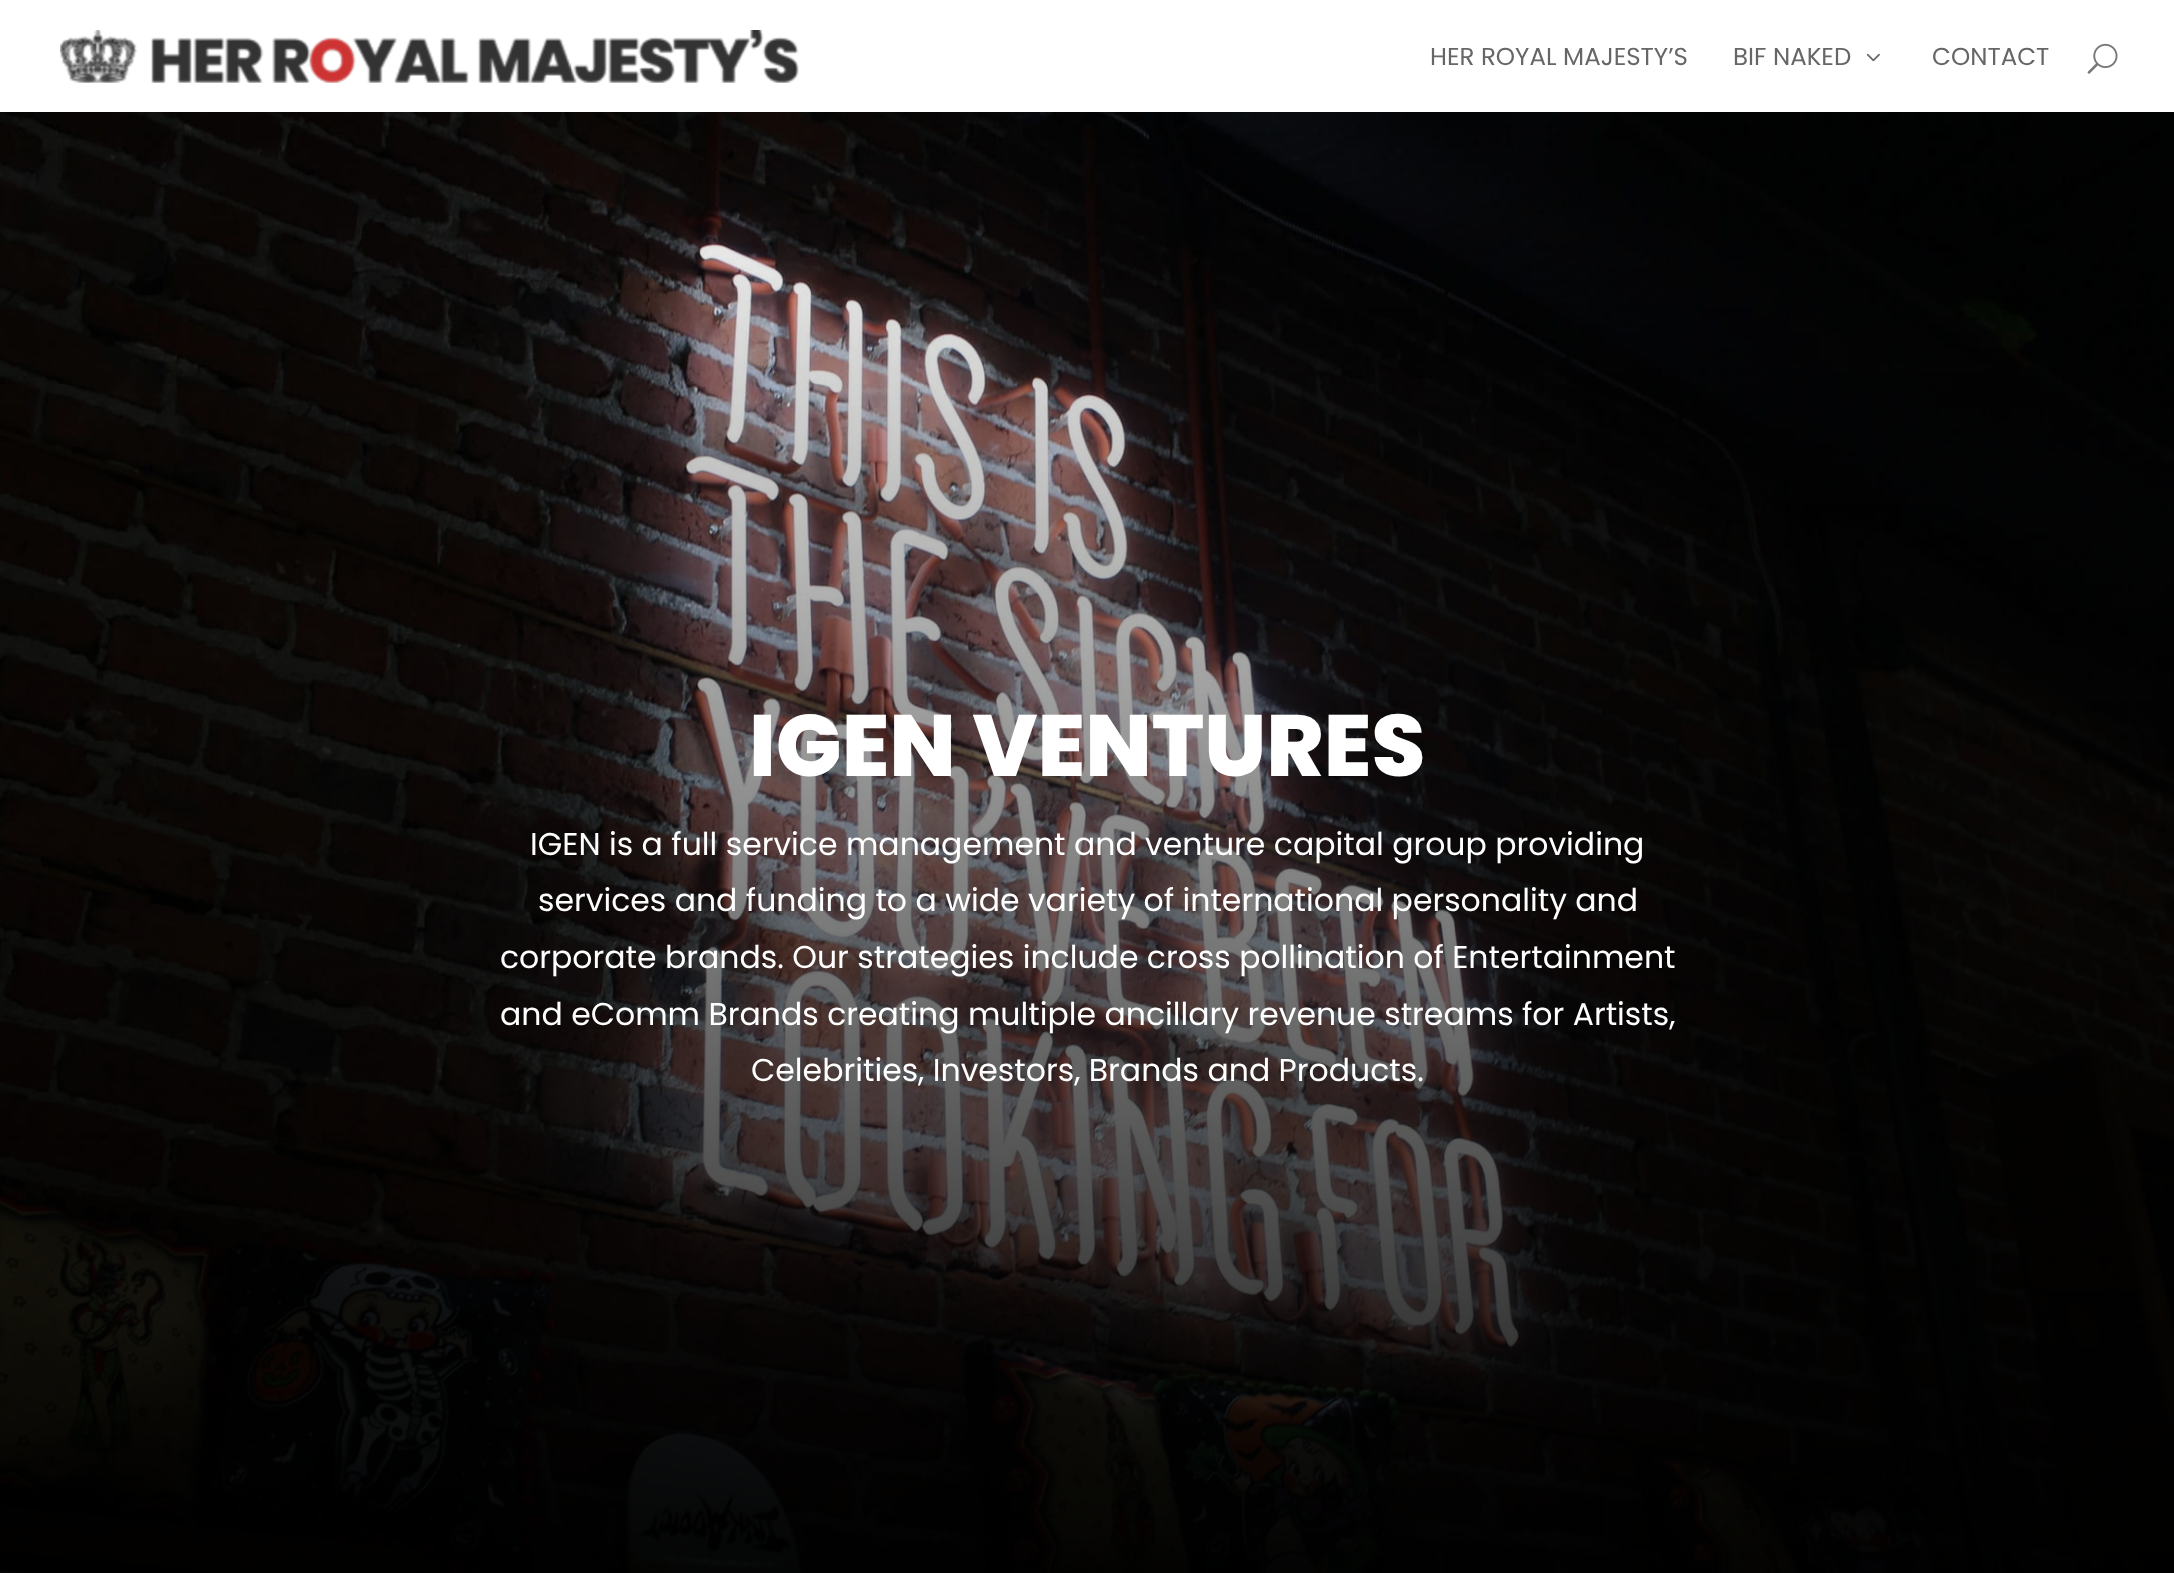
(async () => {
    const canvas = document.querySelector("canvas");
    canvas.width = 2174;
    canvas.height = 1573;
    const context = canvas.getContext("2d");
    context.miterLimit = 4;
    context.fontKerning = "normal";
    function write(s, x, y, font, color) {
        context.font = font;
        context.fillStyle = color;
        context.fillText(s, x, y);
    }
    function block(x, y, w, h, color) {
        context.fillStyle = color;
        context.fillRect(x, y, w, h);
    }
    async function photo(src, x, y, w, h) {
        const img = new Image();
        img.src = src;
        await img.decode();
        context.drawImage(img, x, y, w, h);
    }

    block(0, 0, 2174, 1573, "rgb(255, 255, 255)");
    await photo("media/4.png", 0, 112, 2174, 1461);
    block(388, 112, 23, 2, "rgba(0, 0, 0, 0.1)");
    await photo("media/1.png", 60, 30, 739, 53);
    write("HER ROYAL MAJESTY’S", 1430, 65, "24.5px Poppins", "rgb(102, 102, 102)");
    write("BIF NAKED", 1733, 65, "24.5px Poppins", "rgb(102, 102, 102)");
    await photo("media/2.png", 1866, 53, 14, 9);
    write("CONTACT", 1932, 65, "24.5px Poppins", "rgb(102, 102, 102)");
    await photo("media/3.png", 2087, 43, 31, 31);
    write("IGEN VENTURES", 749, 776, "800 87px Poppins", "rgb(255, 255, 255)");
    write("IGEN is a full service management and venture capital group providing", 530, 855, "31.5px Poppins", "rgb(255, 255, 255)");
    write("services and funding to a wide variety of international personality and", 538, 911, "31.5px Poppins", "rgb(255, 255, 255)");
    write("corporate brands. Our strategies include cross pollination of Entertainment", 500, 968, "31.5px Poppins", "rgb(255, 255, 255)");
    write("and eComm Brands creating multiple ancillary revenue streams for Artists,", 500, 1025, "31.5px Poppins", "rgb(255, 255, 255)");
    write("Celebrities, Investors, Brands and Products.", 751, 1081, "31.5px Poppins", "rgb(255, 255, 255)");
})();
